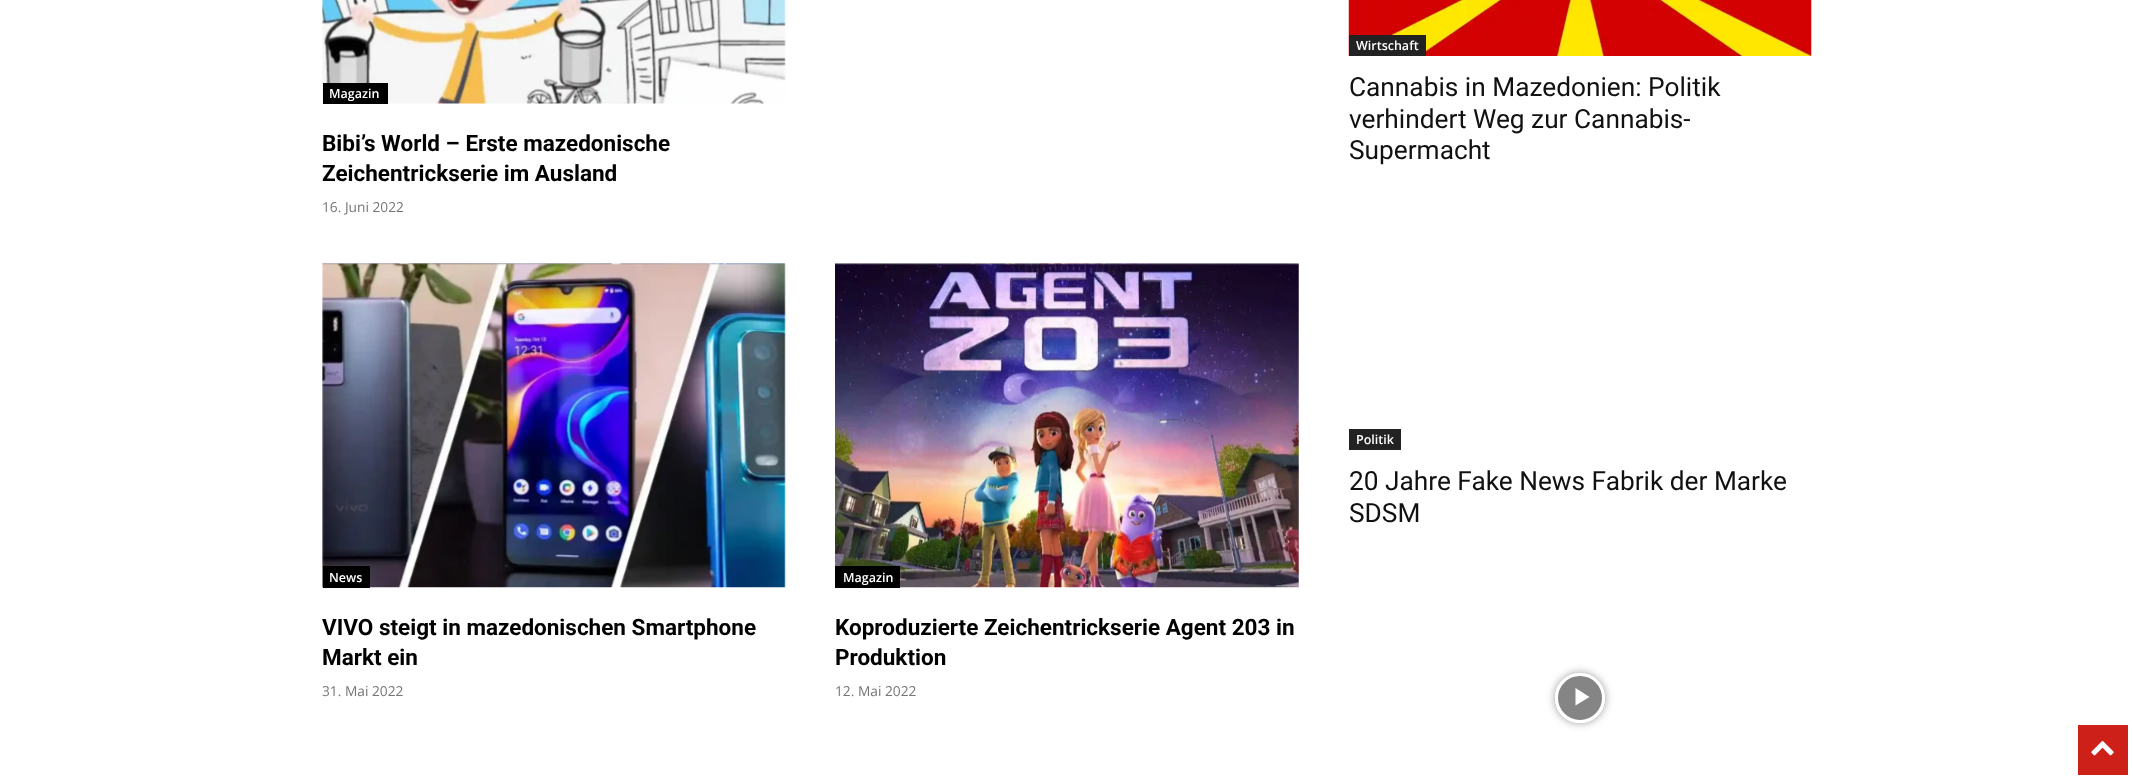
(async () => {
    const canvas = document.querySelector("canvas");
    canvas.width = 2133;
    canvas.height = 780;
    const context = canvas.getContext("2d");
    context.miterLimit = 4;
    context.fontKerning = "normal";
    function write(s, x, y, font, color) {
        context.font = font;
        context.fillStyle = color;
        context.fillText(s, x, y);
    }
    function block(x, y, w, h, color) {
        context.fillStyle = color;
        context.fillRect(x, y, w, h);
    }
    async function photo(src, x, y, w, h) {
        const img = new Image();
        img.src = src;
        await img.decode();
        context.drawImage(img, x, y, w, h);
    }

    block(0, 0, 2133, 780, "rgb(255, 255, 255)");
    await photo("media/1.png", 322, 0, 464, 104);
    block(323, 83, 65, 21, "rgb(0, 0, 0)");
    write("Magazin", 329, 98, "600 12.5px Open Sans", "rgb(255, 255, 255)");
    write("Bibi’s World – Erste mazedonische", 322, 151, "bold 22.5px Roboto", "rgb(0, 0, 0)");
    write("Zeichentrickserie im Ausland", 322, 181, "bold 22.5px Roboto", "rgb(0, 0, 0)");
    write("16. Juni 2022", 322, 212, "13.75px Open Sans", "rgb(118, 118, 118)");
    await photo("media/2.png", 322, 263, 464, 325);
    block(323, 566, 47, 22, "rgb(0, 0, 0)");
    write("News", 329, 582, "600 12.5px Open Sans", "rgb(255, 255, 255)");
    write("VIVO steigt in mazedonischen Smartphone", 322, 635, "bold 22.5px Roboto", "rgb(0, 0, 0)");
    write("Markt ein", 322, 665, "bold 22.5px Roboto", "rgb(0, 0, 0)");
    write("31. Mai 2022", 322, 696, "13.75px Open Sans", "rgb(118, 118, 118)");
    await photo("media/3.png", 835, 263, 464, 325);
    block(835, 566, 65, 22, "rgb(0, 0, 0)");
    write("Magazin", 843, 582, "600 12.5px Open Sans", "rgb(255, 255, 255)");
    write("Koproduzierte Zeichentrickserie Agent 203 in", 835, 635, "bold 22.5px Roboto", "rgb(0, 0, 0)");
    write("Produktion", 835, 665, "bold 22.5px Roboto", "rgb(0, 0, 0)");
    write("12. Mai 2022", 835, 696, "13.75px Open Sans", "rgb(118, 118, 118)");
    await photo("media/4.png", 1348, 0, 464, 56);
    block(1349, 35, 77, 21, "rgb(34, 34, 34)");
    write("Wirtschaft", 1356, 50, "600 12.5px Open Sans", "rgb(255, 255, 255)");
    write("Cannabis in Mazedonien: Politik", 1349, 96, "26.25px Roboto", "rgb(17, 17, 17)");
    write("verhindert Weg zur Cannabis-", 1349, 128, "26.25px Roboto", "rgb(17, 17, 17)");
    write("Supermacht", 1349, 159, "26.25px Roboto", "rgb(17, 17, 17)");
    block(1349, 429, 52, 21, "rgb(34, 34, 34)");
    write("Politik", 1356, 444, "600 12.5px Open Sans", "rgb(255, 255, 255)");
    write("20 Jahre Fake News Fabrik der Marke", 1349, 490, "26.25px Roboto", "rgb(17, 17, 17)");
    write("SDSM", 1349, 522, "26.25px Roboto", "rgb(17, 17, 17)");
    context.save();
    context.beginPath();
    context.moveTo(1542, 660);
    context.lineTo(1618, 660);
    context.lineTo(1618, 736);
    context.lineTo(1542, 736);
    context.closePath();
    context.moveTo(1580, 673);
    context.bezierCurveTo(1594, 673, 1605, 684, 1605, 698);
    context.bezierCurveTo(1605, 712, 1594, 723, 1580, 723);
    context.bezierCurveTo(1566, 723, 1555, 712, 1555, 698);
    context.bezierCurveTo(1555, 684, 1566, 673, 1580, 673);
    context.closePath();
    context.clip("evenodd");
    context.fillStyle = "rgba(0, 0, 0, 0.4)";
    context.filter = "blur(4px)";
    context.beginPath();
    context.roundRect(1555, 673, 50, 50, 25);
    context.fill();
    context.filter = "none";
    context.restore();
    context.fillStyle = "rgba(0, 0, 0, 0.48)";
    context.beginPath();
    context.arc(1580, 698, 23.5, 0, Math.PI * 2);
    context.fill();
    context.strokeStyle = "rgb(255, 255, 255)";
    context.lineWidth = 3;
    context.stroke();
    context.fillStyle = "rgb(255, 255, 255)";
    context.beginPath();
    context.moveTo(1575.5, 688);
    context.lineTo(1575.5, 705.5);
    context.lineTo(1589.5, 697);
    context.closePath();
    context.fill();
    block(2078, 725, 50, 50, "rgb(205, 32, 25)");
    await photo("media/5.png", 2091, 741, 23, 15);
})();
